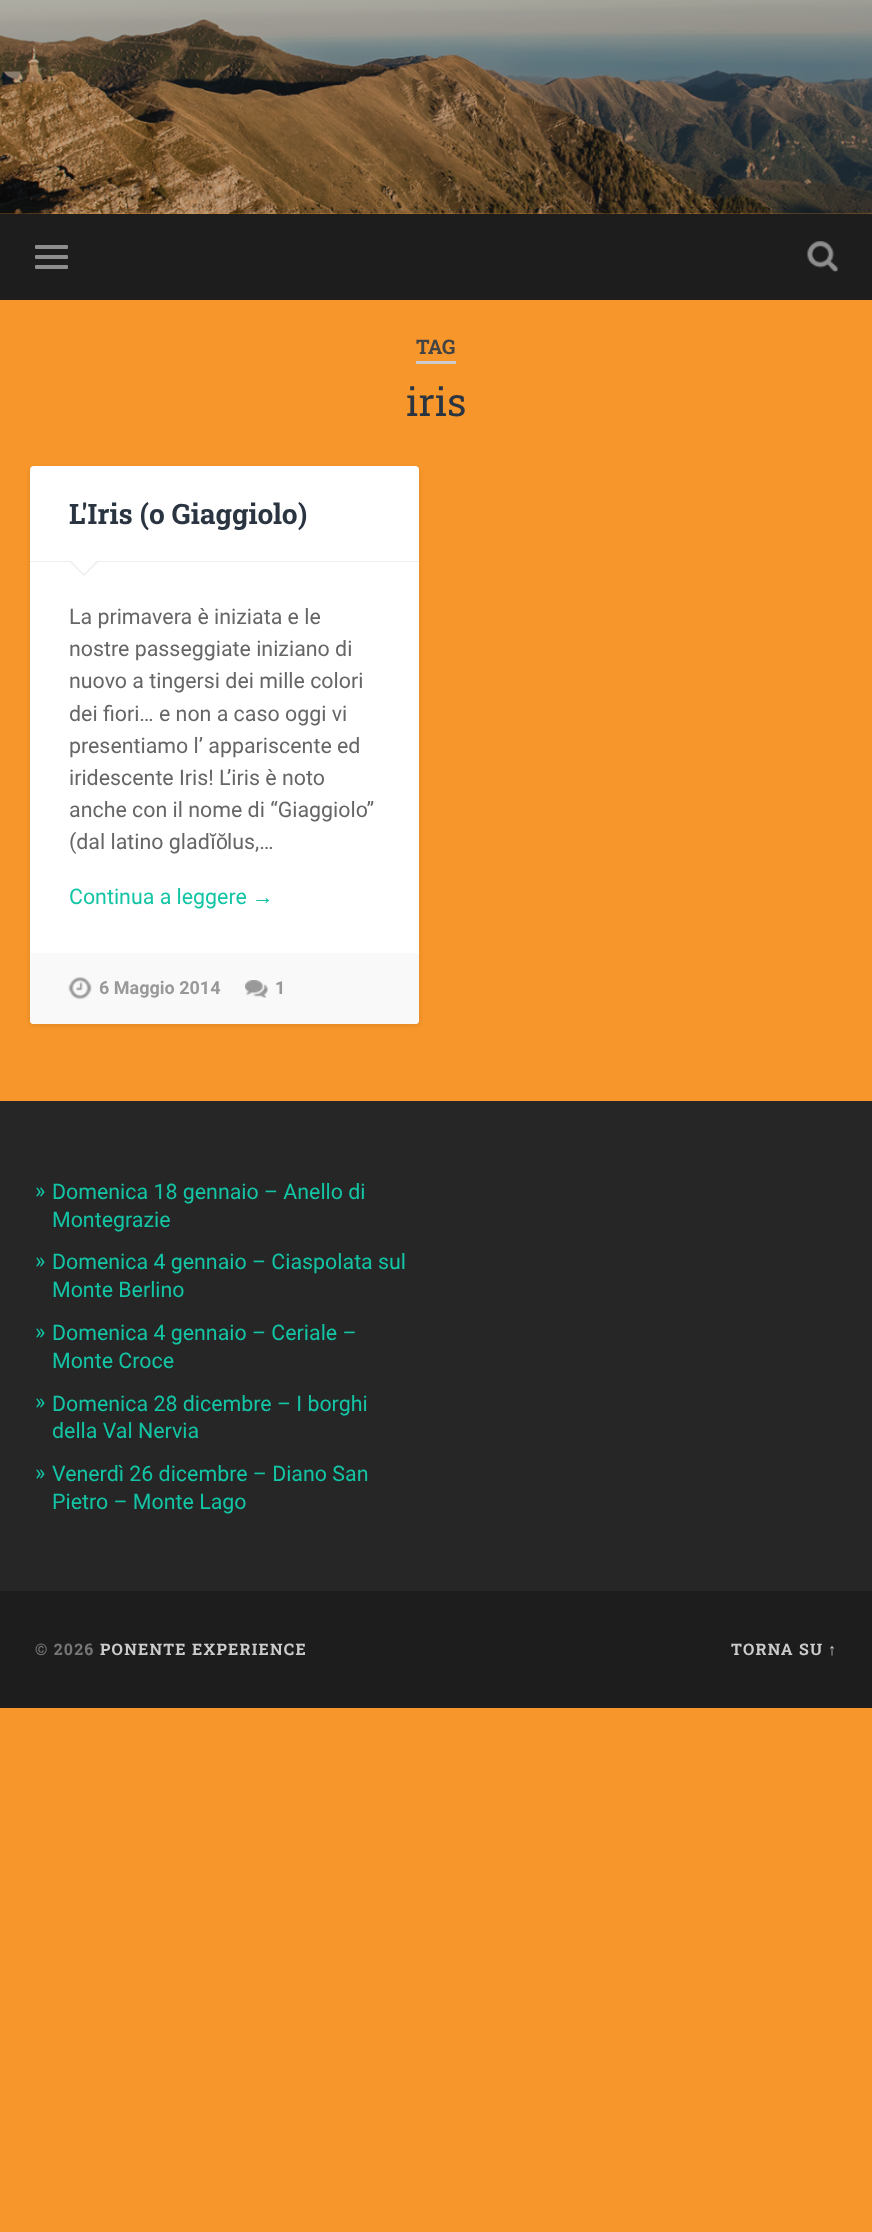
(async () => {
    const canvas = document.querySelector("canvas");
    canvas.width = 872;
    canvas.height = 2232;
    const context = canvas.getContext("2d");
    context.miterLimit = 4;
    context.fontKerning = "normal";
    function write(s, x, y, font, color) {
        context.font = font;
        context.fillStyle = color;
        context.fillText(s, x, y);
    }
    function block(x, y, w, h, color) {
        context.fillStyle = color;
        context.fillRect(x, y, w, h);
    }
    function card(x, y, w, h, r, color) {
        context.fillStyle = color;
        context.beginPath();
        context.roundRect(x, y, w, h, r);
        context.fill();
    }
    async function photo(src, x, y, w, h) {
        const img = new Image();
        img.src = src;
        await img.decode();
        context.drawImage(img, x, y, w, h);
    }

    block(0, 0, 872, 2232, "rgb(247, 150, 42)");
    await photo("media/1.png", 0, 0, 872, 214);
    block(0, 214, 872, 86, "rgb(29, 29, 29)");
    card(35, 245, 33, 4, 1, "rgb(142, 142, 142)");
    card(35, 255, 33, 4, 1, "rgb(142, 142, 142)");
    card(35, 265, 33, 4, 1, "rgb(142, 142, 142)");
    await photo("media/2.png", 807, 241, 31, 31);
    block(416, 361, 40, 3, "rgb(204, 204, 204)");
    write("TAG", 416, 354, "bold 20px Roboto Slab", "rgb(68, 68, 68)");
    write("iris", 406, 416, "39px Roboto Slab", "rgb(43, 53, 66)");
    context.fillStyle = "rgba(0, 0, 0, 0.1)";
    context.filter = "blur(2.5px)";
    context.beginPath();
    context.roundRect(30, 468, 389, 557, 4);
    context.fill();
    context.filter = "none";
    card(30, 466, 389, 558, 4, "rgb(255, 255, 255)");
    block(30, 561, 389, 1, "rgb(238, 238, 238)");
    write("L'Iris (o Giaggiolo)", 69, 524, "bold 28.1px Roboto Slab", "rgb(43, 53, 66)");
    context.fillStyle = "rgb(238, 238, 238)";
    context.beginPath();
    context.moveTo(69, 561);
    context.lineTo(99, 561);
    context.lineTo(84, 576);
    context.closePath();
    context.fill();
    context.fillStyle = "rgb(255, 255, 255)";
    context.beginPath();
    context.moveTo(70, 560);
    context.lineTo(97.5, 560);
    context.lineTo(84, 574);
    context.closePath();
    context.fill();
    write("La primavera è iniziata e le", 69, 624, "21.4px Roboto", "rgb(102, 102, 102)");
    write("nostre passeggiate iniziano di", 69, 656, "21.4px Roboto", "rgb(102, 102, 102)");
    write("nuovo a tingersi dei mille colori", 69, 688, "21.4px Roboto", "rgb(102, 102, 102)");
    write("dei fiori… e non a caso oggi vi", 69, 721, "21.4px Roboto", "rgb(102, 102, 102)");
    write("presentiamo l’ appariscente ed", 69, 753, "21.4px Roboto", "rgb(102, 102, 102)");
    write("iridescente Iris! L’iris è noto", 69, 785, "21.4px Roboto", "rgb(102, 102, 102)");
    write("anche con il nome di “Giaggiolo”", 69, 817, "21.4px Roboto", "rgb(102, 102, 102)");
    write("(dal latino glad", 69, 849, "21.4px Roboto", "rgb(102, 102, 102)");
    write("ĭŏ", 210, 849, "21.4px Liberation Sans", "rgb(102, 102, 102)");
    write("lus,…", 227, 849, "21.4px Roboto", "rgb(102, 102, 102)");
    write("Continua a leggere", 69, 904, "21.4px Roboto", "rgb(19, 196, 165)");
    write("→", 252, 904, "21.4px Liberation Sans", "rgb(19, 196, 165)");
    context.fillStyle = "rgb(249, 249, 249)";
    context.beginPath();
    context.roundRect(30, 953, 389, 71, [0, 0, 4, 4]);
    context.fill();
    await photo("media/3.png", 68, 977, 24, 22);
    write("6 Maggio 2014", 99, 994, "bold 18px Roboto", "rgb(153, 153, 153)");
    await photo("media/4.png", 245, 980, 23, 18);
    write("1", 275, 994, "bold 18px Roboto", "rgb(153, 153, 153)");
    block(0, 1101, 872, 490, "rgb(38, 38, 38)");
    write("»", 35, 1198, "22px Roboto", "rgb(19, 196, 165)");
    write("Domenica 18 gennaio – Anello di", 52, 1199, "21.4px Roboto", "rgb(19, 196, 165)");
    write("Montegrazie", 52, 1227, "21.4px Roboto", "rgb(19, 196, 165)");
    write("»", 35, 1268, "22px Roboto", "rgb(19, 196, 165)");
    write("Domenica 4 gennaio – Ciaspolata sul", 52, 1269, "21.4px Roboto", "rgb(19, 196, 165)");
    write("Monte Berlino", 52, 1297, "21.4px Roboto", "rgb(19, 196, 165)");
    write("»", 35, 1339, "22px Roboto", "rgb(19, 196, 165)");
    write("Domenica 4 gennaio – Ceriale –", 52, 1340, "21.4px Roboto", "rgb(19, 196, 165)");
    write("Monte Croce", 52, 1368, "21.4px Roboto", "rgb(19, 196, 165)");
    write("»", 35, 1409, "22px Roboto", "rgb(19, 196, 165)");
    write("Domenica 28 dicembre – I borghi", 52, 1411, "21.4px Roboto", "rgb(19, 196, 165)");
    write("della Val Nervia", 52, 1438, "21.4px Roboto", "rgb(19, 196, 165)");
    write("»", 35, 1480, "22px Roboto", "rgb(19, 196, 165)");
    write("Venerdì 26 dicembre – Diano San", 52, 1481, "21.4px Roboto", "rgb(19, 196, 165)");
    write("Pietro – Monte Lago", 52, 1509, "21.4px Roboto", "rgb(19, 196, 165)");
    block(0, 1591, 872, 117, "rgb(29, 29, 29)");
    context.letterSpacing = "1.25px";
    write("© 2026", 35, 1655, "bold 16px Roboto Slab", "rgb(118, 118, 118)");
    write("PONENTE EXPERIENCE", 100, 1655, "bold 16px Roboto Slab", "rgb(204, 204, 204)");
    write("TORNA SU", 731, 1655, "bold 16px Roboto Slab", "rgb(204, 204, 204)");
    write("↑", 828, 1655, "bold 16px Liberation Sans", "rgb(204, 204, 204)");
})();
